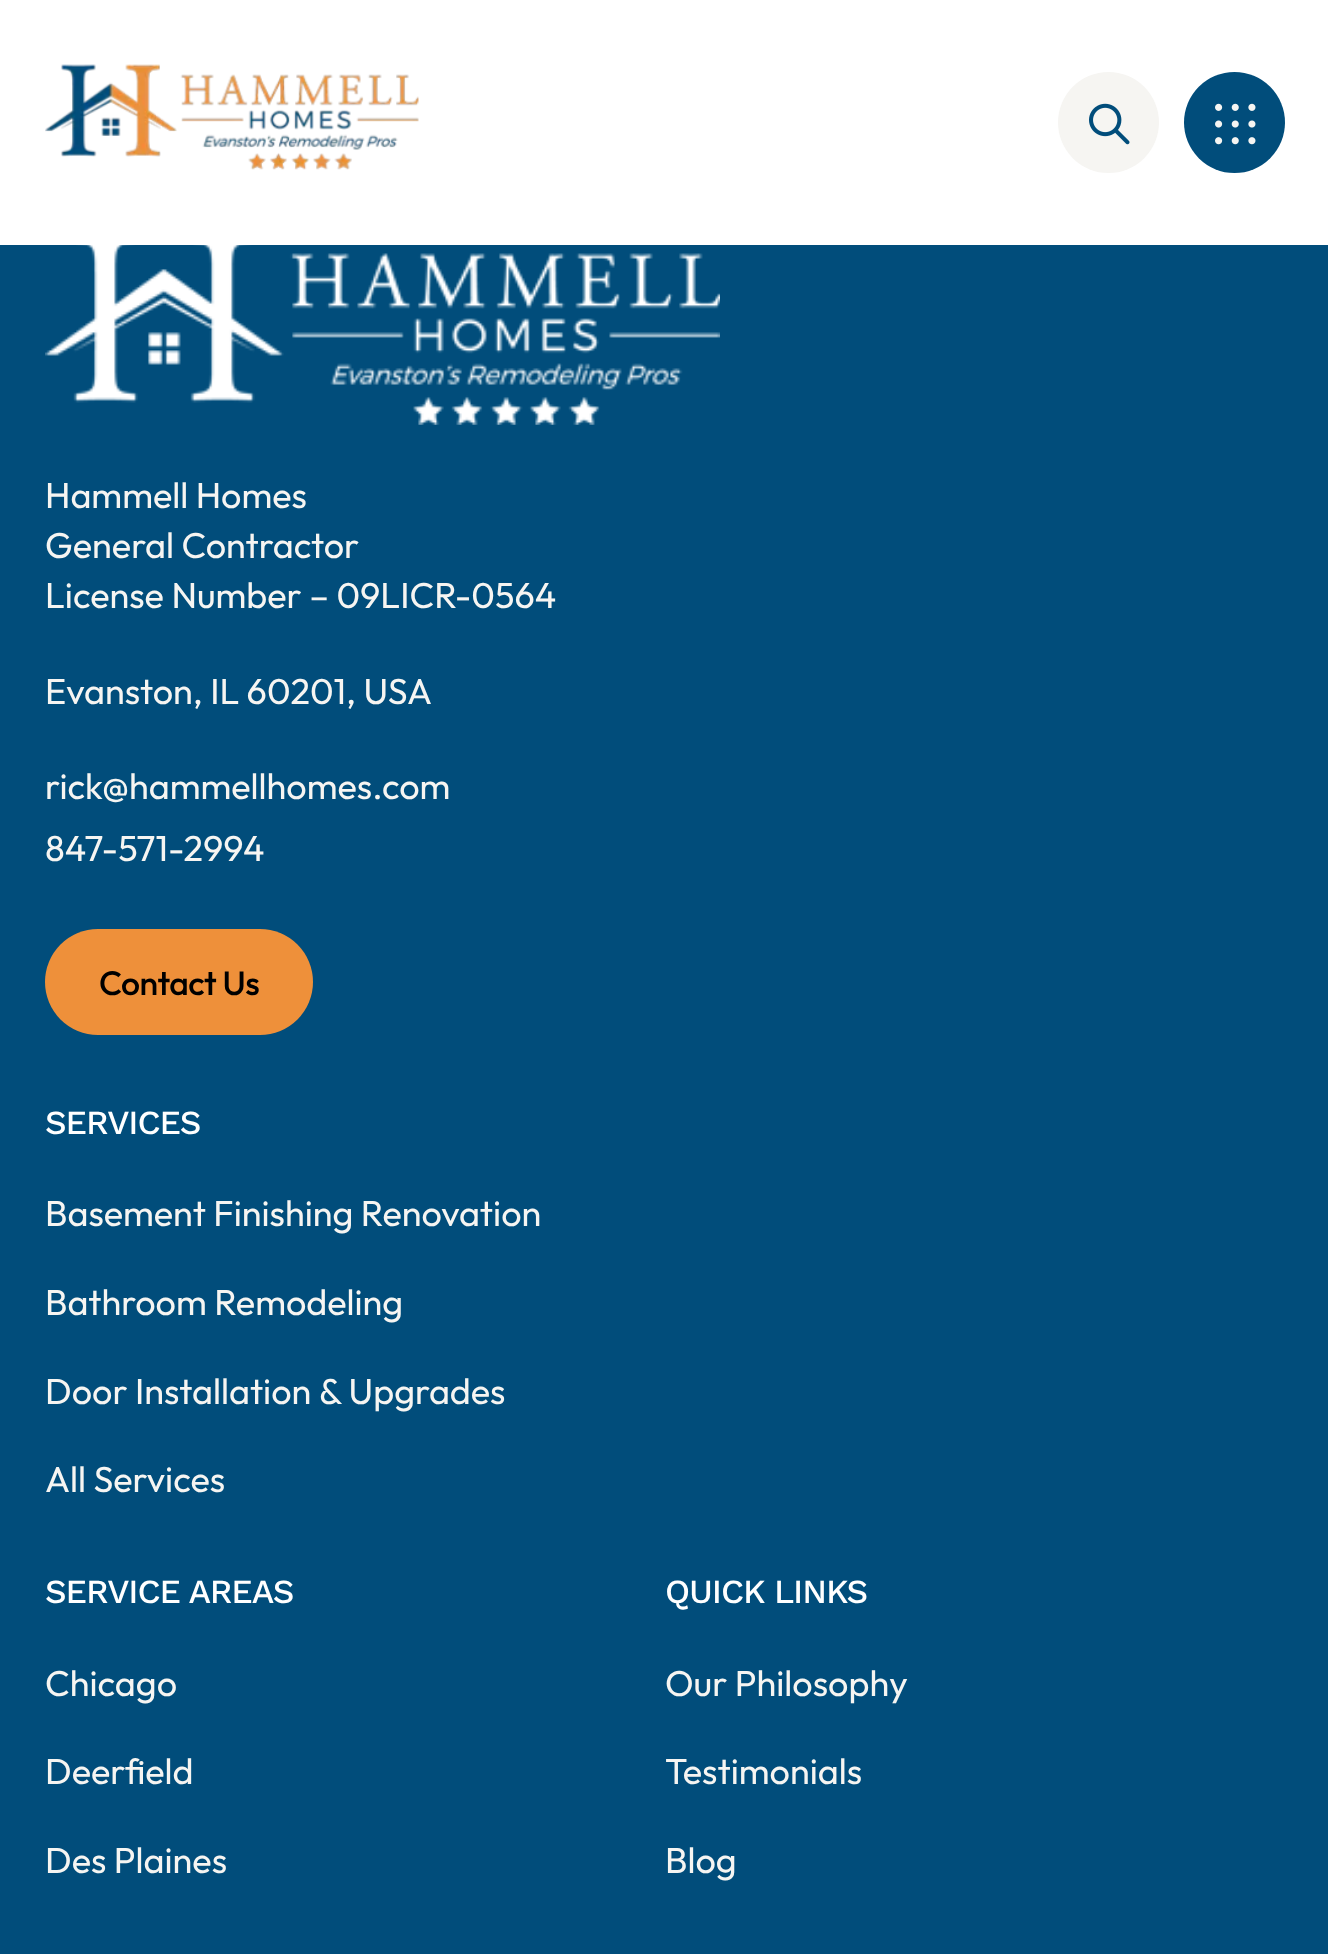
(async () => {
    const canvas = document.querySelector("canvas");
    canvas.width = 1328;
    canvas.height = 1954;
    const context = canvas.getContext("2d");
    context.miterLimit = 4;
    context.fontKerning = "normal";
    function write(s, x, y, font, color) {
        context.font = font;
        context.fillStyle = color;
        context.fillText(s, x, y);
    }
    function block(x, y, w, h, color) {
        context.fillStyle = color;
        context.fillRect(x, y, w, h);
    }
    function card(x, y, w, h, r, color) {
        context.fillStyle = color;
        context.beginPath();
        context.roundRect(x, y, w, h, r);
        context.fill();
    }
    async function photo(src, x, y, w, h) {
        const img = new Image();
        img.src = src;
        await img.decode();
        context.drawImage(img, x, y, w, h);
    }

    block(0, 0, 1328, 1954, "rgb(1, 77, 123)");
    block(0, 0, 1328, 245, "rgb(255, 255, 255)");
    await photo("media/1.png", 45, 64, 374, 106);
    context.fillStyle = "rgb(246, 245, 242)";
    context.beginPath();
    context.arc(1108.5, 122.5, 50.5, 0, Math.PI * 2);
    context.fill();
    await photo("media/2.png", 1089, 103, 41, 42);
    context.fillStyle = "rgb(1, 77, 123)";
    context.beginPath();
    context.arc(1234.5, 122.5, 50.5, 0, Math.PI * 2);
    context.fill();
    await photo("media/3.png", 1215, 103, 41, 42);
    await photo("media/4.png", 45, 245, 675, 180);
    write("Hammell Homes", 45, 508, "36px Outfit", "rgb(246, 245, 242)");
    write("General Contractor", 45, 558, "36px Outfit", "rgb(246, 245, 242)");
    write("License Number – 09LICR-0564", 45, 608, "36px Outfit", "rgb(246, 245, 242)");
    write("Evanston, IL 60201, USA", 45, 704, "36px Outfit", "rgb(246, 245, 242)");
    write("rick@hammellhomes.com", 45, 799, "36px Outfit", "rgb(246, 245, 242)");
    write("847-571-2994", 45, 861, "36px Outfit", "rgb(246, 245, 242)");
    card(45, 929, 268, 106, 53, "rgb(238, 144, 58)");
    context.letterSpacing = "-0.5px";
    write("Contact Us", 99, 995, "500 33.75px Outfit", "rgb(0, 0, 0)");
    context.letterSpacing = "-1.1px";
    write("SERVICES", 45, 1134, "500 33.75px Work Sans", "rgb(255, 255, 255)");
    context.letterSpacing = "0px";
    write("Basement Finishing Renovation", 45, 1226, "36px Outfit", "rgb(246, 245, 242)");
    write("Bathroom Remodeling", 45, 1315, "36px Outfit", "rgb(246, 245, 242)");
    write("Door Installation & Upgrades", 45, 1404, "36px Outfit", "rgb(246, 245, 242)");
    write("All Services", 45, 1492, "36px Outfit", "rgb(246, 245, 242)");
    context.letterSpacing = "-1.1px";
    write("SERVICE AREAS", 45, 1603, "500 33.75px Work Sans", "rgb(255, 255, 255)");
    context.letterSpacing = "0px";
    write("Chicago", 45, 1696, "36px Outfit", "rgb(246, 245, 242)");
    write("Deerfield", 45, 1784, "36px Outfit", "rgb(246, 245, 242)");
    write("Des Plaines", 45, 1873, "36px Outfit", "rgb(246, 245, 242)");
    context.letterSpacing = "-1.1px";
    write("QUICK LINKS", 665, 1603, "500 33.75px Work Sans", "rgb(255, 255, 255)");
    context.letterSpacing = "0px";
    write("Our Philosophy", 665, 1696, "36px Outfit", "rgb(246, 245, 242)");
    write("Testimonials", 665, 1784, "36px Outfit", "rgb(246, 245, 242)");
    write("Blog", 665, 1873, "36px Outfit", "rgb(246, 245, 242)");
})();
